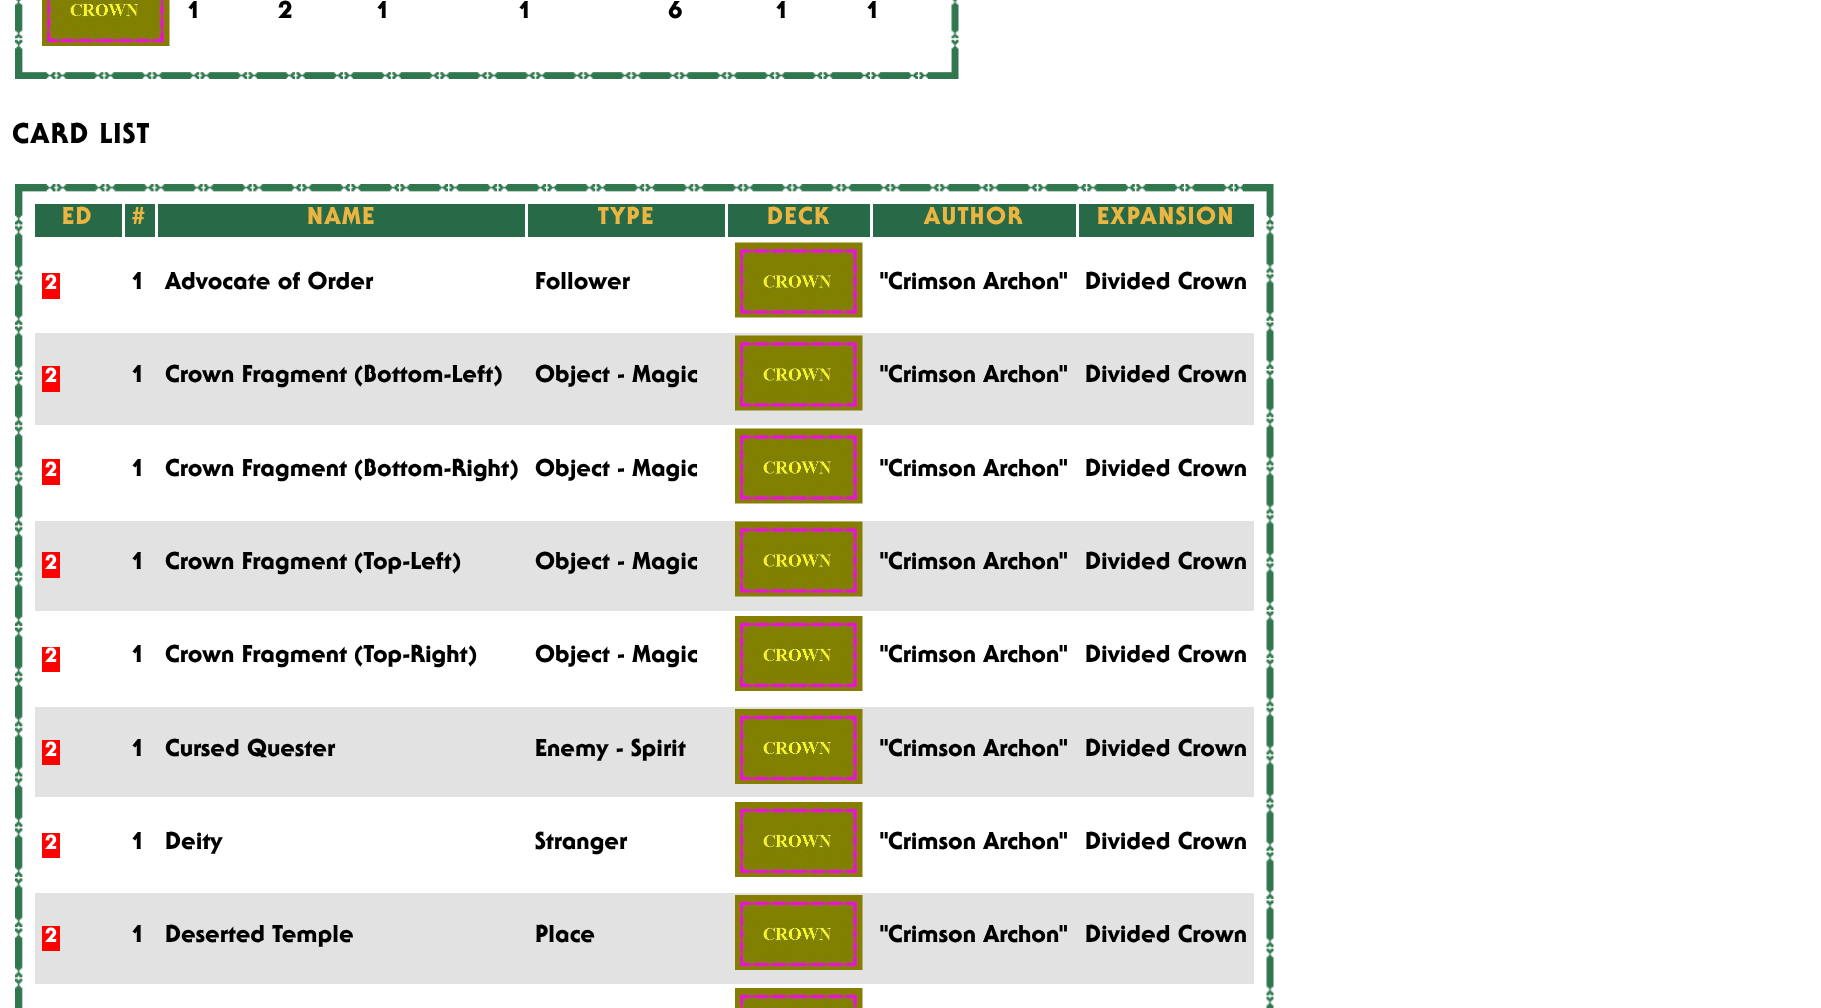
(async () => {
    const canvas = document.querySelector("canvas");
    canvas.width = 1821;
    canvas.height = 1008;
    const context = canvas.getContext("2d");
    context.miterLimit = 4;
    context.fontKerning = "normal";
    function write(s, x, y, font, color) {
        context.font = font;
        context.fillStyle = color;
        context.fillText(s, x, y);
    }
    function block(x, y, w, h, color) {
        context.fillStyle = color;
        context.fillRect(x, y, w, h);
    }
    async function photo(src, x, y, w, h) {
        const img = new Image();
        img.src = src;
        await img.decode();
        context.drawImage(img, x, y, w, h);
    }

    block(0, 0, 1821, 1008, "rgb(255, 255, 255)");
    await photo("media/1.png", 15, 0, 944, 79);
    block(23, 4, 928, 68, "rgb(255, 255, 255)");
    await photo("media/2.png", 42, 0, 128, 46);
    write("1", 187, 18, "900 24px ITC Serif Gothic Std", "rgb(0, 0, 0)");
    write("2", 278, 18, "900 24px ITC Serif Gothic Std", "rgb(0, 0, 0)");
    write("1", 376, 18, "900 24px ITC Serif Gothic Std", "rgb(0, 0, 0)");
    write("1", 518, 18, "900 24px ITC Serif Gothic Std", "rgb(0, 0, 0)");
    write("6", 668, 18, "900 24px ITC Serif Gothic Std", "rgb(0, 0, 0)");
    write("1", 775, 18, "900 24px ITC Serif Gothic Std", "rgb(0, 0, 0)");
    write("1", 866, 18, "900 24px ITC Serif Gothic Std", "rgb(0, 0, 0)");
    context.letterSpacing = "1.5px";
    write("CARD LIST", 12, 143, "900 28px ITC Serif Gothic Std", "rgb(0, 0, 0)");
    await photo("media/3.png", 15, 184, 1259, 824);
    block(1265, 224, 1, 784, "rgb(255, 255, 255)");
    block(35, 204, 87, 33, "rgb(40, 105, 71)");
    write("ED", 62, 224, "900 24px ITC Serif Gothic Std", "rgb(234, 181, 65)");
    block(125, 204, 30, 33, "rgb(40, 105, 71)");
    write("#", 131, 224, "900 24px ITC Serif Gothic Std", "rgb(234, 181, 65)");
    block(158, 204, 367, 33, "rgb(40, 105, 71)");
    write("NAME", 307, 224, "900 24px ITC Serif Gothic Std", "rgb(234, 181, 65)");
    block(528, 204, 197, 33, "rgb(40, 105, 71)");
    write("TYPE", 598, 224, "900 24px ITC Serif Gothic Std", "rgb(234, 181, 65)");
    block(728, 204, 142, 33, "rgb(40, 105, 71)");
    write("DECK", 767, 224, "900 24px ITC Serif Gothic Std", "rgb(234, 181, 65)");
    block(873, 204, 203, 33, "rgb(40, 105, 71)");
    write("AUTHOR", 924, 224, "900 24px ITC Serif Gothic Std", "rgb(234, 181, 65)");
    block(1079, 204, 175, 33, "rgb(40, 105, 71)");
    write("EXPANSION", 1097, 224, "900 24px ITC Serif Gothic Std", "rgb(234, 181, 65)");
    block(42, 273, 18, 26, "rgb(255, 0, 0)");
    context.letterSpacing = "0px";
    write("2", 45, 289, "900 20px ITC Serif Gothic Std", "rgb(255, 255, 255)");
    write("1", 131, 289, "900 24px ITC Serif Gothic Std", "rgb(0, 0, 0)");
    write("Advocate of Order", 165, 289, "900 24px ITC Serif Gothic Std", "rgb(0, 0, 0)");
    write("Follower", 535, 289, "900 24px ITC Serif Gothic Std", "rgb(0, 0, 0)");
    await photo("media/4.png", 735, 242, 128, 76);
    write("\"Crimson Archon\"", 880, 289, "900 24px ITC Serif Gothic Std", "rgb(0, 0, 0)");
    write("Divided Crown", 1085, 289, "900 24px ITC Serif Gothic Std", "rgb(0, 0, 0)");
    block(35, 333, 1219, 92, "rgb(226, 226, 226)");
    block(42, 366, 18, 26, "rgb(255, 0, 0)");
    write("2", 45, 382, "900 20px ITC Serif Gothic Std", "rgb(255, 255, 255)");
    write("1", 131, 382, "900 24px ITC Serif Gothic Std", "rgb(0, 0, 0)");
    write("Crown Fragment (Bottom-Left)", 165, 382, "900 24px ITC Serif Gothic Std", "rgb(0, 0, 0)");
    write("Object - Magic", 535, 382, "900 24px ITC Serif Gothic Std", "rgb(0, 0, 0)");
    await photo("media/5.png", 735, 335, 128, 76);
    write("\"Crimson Archon\"", 880, 382, "900 24px ITC Serif Gothic Std", "rgb(0, 0, 0)");
    write("Divided Crown", 1085, 382, "900 24px ITC Serif Gothic Std", "rgb(0, 0, 0)");
    block(42, 459, 18, 26, "rgb(255, 0, 0)");
    write("2", 45, 476, "900 20px ITC Serif Gothic Std", "rgb(255, 255, 255)");
    write("1", 131, 476, "900 24px ITC Serif Gothic Std", "rgb(0, 0, 0)");
    write("Crown Fragment (Bottom-Right)", 165, 476, "900 24px ITC Serif Gothic Std", "rgb(0, 0, 0)");
    write("Object - Magic", 535, 476, "900 24px ITC Serif Gothic Std", "rgb(0, 0, 0)");
    await photo("media/4.png", 735, 428, 128, 76);
    write("\"Crimson Archon\"", 880, 476, "900 24px ITC Serif Gothic Std", "rgb(0, 0, 0)");
    write("Divided Crown", 1085, 476, "900 24px ITC Serif Gothic Std", "rgb(0, 0, 0)");
    block(35, 521, 1219, 90, "rgb(226, 226, 226)");
    block(42, 552, 18, 26, "rgb(255, 0, 0)");
    write("2", 45, 569, "900 20px ITC Serif Gothic Std", "rgb(255, 255, 255)");
    write("1", 131, 569, "900 24px ITC Serif Gothic Std", "rgb(0, 0, 0)");
    write("Crown Fragment (Top-Left)", 165, 569, "900 24px ITC Serif Gothic Std", "rgb(0, 0, 0)");
    write("Object - Magic", 535, 569, "900 24px ITC Serif Gothic Std", "rgb(0, 0, 0)");
    await photo("media/5.png", 735, 521, 128, 76);
    write("\"Crimson Archon\"", 880, 569, "900 24px ITC Serif Gothic Std", "rgb(0, 0, 0)");
    write("Divided Crown", 1085, 569, "900 24px ITC Serif Gothic Std", "rgb(0, 0, 0)");
    block(42, 647, 18, 25, "rgb(255, 0, 0)");
    write("2", 45, 662, "900 20px ITC Serif Gothic Std", "rgb(255, 255, 255)");
    write("1", 131, 662, "900 24px ITC Serif Gothic Std", "rgb(0, 0, 0)");
    write("Crown Fragment (Top-Right)", 165, 662, "900 24px ITC Serif Gothic Std", "rgb(0, 0, 0)");
    write("Object - Magic", 535, 662, "900 24px ITC Serif Gothic Std", "rgb(0, 0, 0)");
    await photo("media/6.png", 735, 616, 128, 75);
    write("\"Crimson Archon\"", 880, 662, "900 24px ITC Serif Gothic Std", "rgb(0, 0, 0)");
    write("Divided Crown", 1085, 662, "900 24px ITC Serif Gothic Std", "rgb(0, 0, 0)");
    block(35, 707, 1219, 90, "rgb(226, 226, 226)");
    block(42, 740, 18, 25, "rgb(255, 0, 0)");
    write("2", 45, 756, "900 20px ITC Serif Gothic Std", "rgb(255, 255, 255)");
    write("1", 131, 756, "900 24px ITC Serif Gothic Std", "rgb(0, 0, 0)");
    write("Cursed Quester", 165, 756, "900 24px ITC Serif Gothic Std", "rgb(0, 0, 0)");
    write("Enemy - Spirit", 535, 756, "900 24px ITC Serif Gothic Std", "rgb(0, 0, 0)");
    await photo("media/7.png", 735, 709, 128, 75);
    write("\"Crimson Archon\"", 880, 756, "900 24px ITC Serif Gothic Std", "rgb(0, 0, 0)");
    write("Divided Crown", 1085, 756, "900 24px ITC Serif Gothic Std", "rgb(0, 0, 0)");
    block(42, 833, 18, 25, "rgb(255, 0, 0)");
    write("2", 45, 849, "900 20px ITC Serif Gothic Std", "rgb(255, 255, 255)");
    write("1", 131, 849, "900 24px ITC Serif Gothic Std", "rgb(0, 0, 0)");
    write("Deity", 165, 849, "900 24px ITC Serif Gothic Std", "rgb(0, 0, 0)");
    write("Stranger", 535, 849, "900 24px ITC Serif Gothic Std", "rgb(0, 0, 0)");
    await photo("media/6.png", 735, 802, 128, 75);
    write("\"Crimson Archon\"", 880, 849, "900 24px ITC Serif Gothic Std", "rgb(0, 0, 0)");
    write("Divided Crown", 1085, 849, "900 24px ITC Serif Gothic Std", "rgb(0, 0, 0)");
    block(35, 893, 1219, 91, "rgb(226, 226, 226)");
    block(42, 926, 18, 25, "rgb(255, 0, 0)");
    write("2", 45, 942, "900 20px ITC Serif Gothic Std", "rgb(255, 255, 255)");
    write("1", 131, 942, "900 24px ITC Serif Gothic Std", "rgb(0, 0, 0)");
    write("Deserted Temple", 165, 942, "900 24px ITC Serif Gothic Std", "rgb(0, 0, 0)");
    write("Place", 535, 942, "900 24px ITC Serif Gothic Std", "rgb(0, 0, 0)");
    await photo("media/7.png", 735, 895, 128, 75);
    write("\"Crimson Archon\"", 880, 942, "900 24px ITC Serif Gothic Std", "rgb(0, 0, 0)");
    write("Divided Crown", 1085, 942, "900 24px ITC Serif Gothic Std", "rgb(0, 0, 0)");
    await photo("media/8.png", 735, 988, 128, 20);
})();
